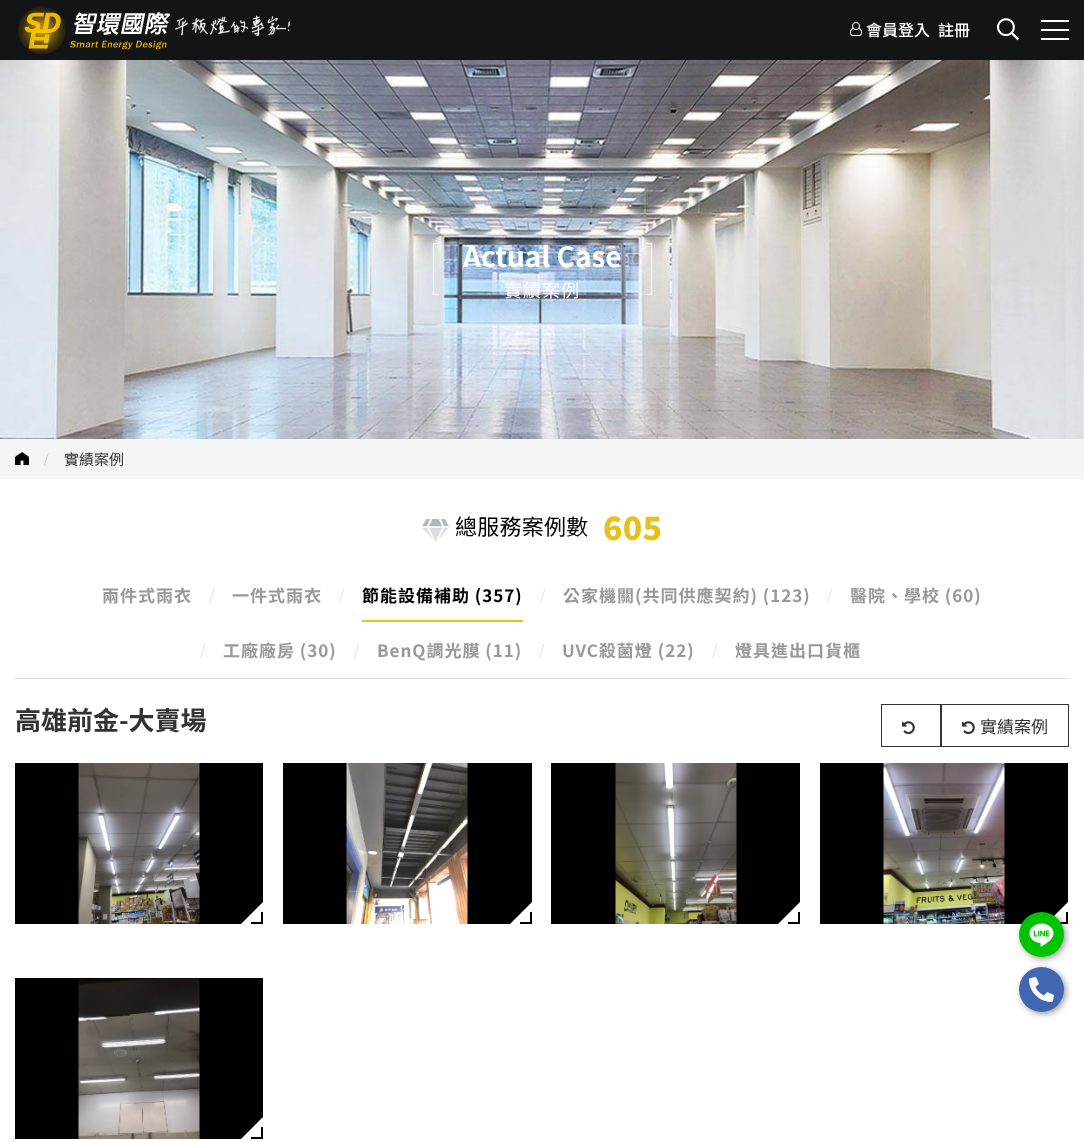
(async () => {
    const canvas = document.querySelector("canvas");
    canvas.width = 1084;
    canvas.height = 1142;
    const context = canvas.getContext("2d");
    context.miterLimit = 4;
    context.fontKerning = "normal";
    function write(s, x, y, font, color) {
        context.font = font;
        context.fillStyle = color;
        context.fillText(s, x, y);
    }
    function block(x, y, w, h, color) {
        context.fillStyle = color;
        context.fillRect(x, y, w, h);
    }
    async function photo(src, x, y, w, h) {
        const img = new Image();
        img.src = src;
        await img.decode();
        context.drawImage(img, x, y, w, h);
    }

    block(0, 0, 1084, 1142, "rgb(255, 255, 255)");
    block(0, 0, 1084, 60, "rgb(19, 20, 21)");
    await photo("media/1.png", 18, 6, 272, 48);
    await photo("media/2.png", 997, 18, 22, 23);
    block(1041, 29, 28, 2, "rgb(255, 255, 255)");
    block(1041, 20, 28, 2, "rgb(255, 255, 255)");
    block(1041, 38, 28, 2, "rgb(255, 255, 255)");
    await photo("media/3.png", 850, 22, 12, 14);
    write("會員登入", 866, 36, "500 16px Noto Sans TC", "rgb(255, 255, 255)");
    write("註冊", 938, 36, "500 16px Noto Sans TC", "rgb(255, 255, 255)");
    await photo("media/4.png", 0, 60, 1084, 379);
    block(433, 243, 6, 1, "rgb(255, 255, 255)");
    block(433, 294, 6, 1, "rgb(255, 255, 255)");
    block(433, 243, 1, 52, "rgb(255, 255, 255)");
    write("Actual Case", 463, 267, "bold 28px Noto Sans TC", "rgb(255, 255, 255)");
    block(646, 243, 6, 1, "rgb(255, 255, 255)");
    block(651, 243, 1, 52, "rgb(255, 255, 255)");
    block(646, 294, 6, 1, "rgb(255, 255, 255)");
    context.letterSpacing = "1px";
    write("實績案例", 504, 297, "18px Noto Sans TC", "rgb(255, 255, 255)");
    block(0, 439, 1084, 40, "rgb(245, 245, 245)");
    await photo("media/5.png", 15, 452, 14, 13);
    context.letterSpacing = "0px";
    write("/", 44, 463, "12px Noto Sans TC", "rgb(204, 204, 204)");
    write("實績案例", 64, 465, "15px Noto Sans TC", "rgb(51, 51, 51)");
    await photo("media/6.png", 422, 519, 27, 23);
    context.letterSpacing = "0.25px";
    write("總服務案例數", 455, 535, "22px Noto Sans TC", "rgb(0, 0, 0)");
    write("605", 603, 540, "900 32px Noto Sans TC", "rgb(231, 192, 26)");
    block(15, 678, 1054, 1, "rgb(224, 224, 224)");
    context.letterSpacing = "1px";
    write("兩件式雨衣", 102, 602, "bold 17px Noto Sans TC", "rgb(153, 153, 153)");
    context.letterSpacing = "0px";
    write("/", 209, 600, "14px Noto Sans TC", "rgb(223, 223, 223)");
    context.letterSpacing = "1px";
    write("一件式雨衣", 232, 602, "bold 17px Noto Sans TC", "rgb(153, 153, 153)");
    context.letterSpacing = "0px";
    write("/", 339, 600, "14px Noto Sans TC", "rgb(223, 223, 223)");
    context.letterSpacing = "1px";
    write("節能設備補助 (357)", 362, 602, "bold 17px Noto Sans TC", "rgb(0, 0, 0)");
    block(362, 620, 161, 2, "rgb(231, 192, 26)");
    context.letterSpacing = "0px";
    write("/", 540, 600, "14px Noto Sans TC", "rgb(223, 223, 223)");
    context.letterSpacing = "1px";
    write("公家機關(共同供應契約) (123)", 563, 602, "bold 17px Noto Sans TC", "rgb(153, 153, 153)");
    context.letterSpacing = "0px";
    write("/", 827, 600, "14px Noto Sans TC", "rgb(223, 223, 223)");
    context.letterSpacing = "1px";
    write("醫院、學校 (60)", 850, 602, "bold 17px Noto Sans TC", "rgb(153, 153, 153)");
    context.letterSpacing = "0px";
    write("/", 200, 655, "14px Noto Sans TC", "rgb(223, 223, 223)");
    context.letterSpacing = "1px";
    write("工廠廠房 (30)", 223, 657, "bold 17px Noto Sans TC", "rgb(153, 153, 153)");
    context.letterSpacing = "0px";
    write("/", 354, 655, "14px Noto Sans TC", "rgb(223, 223, 223)");
    context.letterSpacing = "1px";
    write("BenQ調光膜 (11)", 377, 657, "bold 17px Noto Sans TC", "rgb(153, 153, 153)");
    context.letterSpacing = "0px";
    write("/", 539, 655, "14px Noto Sans TC", "rgb(223, 223, 223)");
    context.letterSpacing = "1px";
    write("UVC殺菌燈 (22)", 562, 657, "bold 17px Noto Sans TC", "rgb(153, 153, 153)");
    context.letterSpacing = "0px";
    write("/", 712, 655, "14px Noto Sans TC", "rgb(223, 223, 223)");
    context.letterSpacing = "1px";
    write("燈具進出口貨櫃", 735, 657, "bold 17px Noto Sans TC", "rgb(153, 153, 153)");
    context.letterSpacing = "0px";
    write("高雄前金-大賣場", 15, 730, "bold 26px Noto Sans TC", "rgb(51, 51, 51)");
    context.strokeStyle = "rgb(51, 51, 51)";
    context.strokeRect(881.5, 704.5, 59, 42);
    await photo("media/7.png", 902, 721, 13, 14);
    context.strokeRect(941.5, 704.5, 127, 42);
    await photo("media/7.png", 962, 721, 13, 14);
    write("實績案例", 980, 733, "17px Noto Sans TC", "rgb(51, 51, 51)");
    block(15, 763, 248, 161, "rgb(0, 0, 0)");
    await photo("media/8.png", 78, 763, 122, 161);
    context.save();
    context.beginPath();
    context.rect(15, 763, 248, 161);
    context.clip();
    context.fillStyle = "rgb(255, 255, 255)";
    context.beginPath();
    context.moveTo(264, 925);
    context.lineTo(240, 925);
    context.lineTo(264, 901);
    context.closePath();
    context.fill();
    context.restore();
    block(261, 912, 2, 12, "rgb(0, 0, 0)");
    block(251, 922, 12, 2, "rgb(0, 0, 0)");
    block(283, 763, 249, 161, "rgb(0, 0, 0)");
    await photo("media/9.png", 346, 763, 122, 161);
    context.save();
    context.beginPath();
    context.rect(283, 763, 249, 161);
    context.clip();
    context.fillStyle = "rgb(255, 255, 255)";
    context.beginPath();
    context.moveTo(533, 925);
    context.lineTo(509, 925);
    context.lineTo(533, 901);
    context.closePath();
    context.fill();
    context.restore();
    block(530, 912, 2, 12, "rgb(0, 0, 0)");
    block(520, 922, 12, 2, "rgb(0, 0, 0)");
    block(551, 763, 249, 161, "rgb(0, 0, 0)");
    await photo("media/10.png", 615, 763, 122, 161);
    context.save();
    context.beginPath();
    context.rect(551, 763, 249, 161);
    context.clip();
    context.fillStyle = "rgb(255, 255, 255)";
    context.beginPath();
    context.moveTo(801, 925);
    context.lineTo(777, 925);
    context.lineTo(801, 901);
    context.closePath();
    context.fill();
    context.restore();
    block(798, 912, 2, 12, "rgb(0, 0, 0)");
    block(788, 922, 12, 2, "rgb(0, 0, 0)");
    block(820, 763, 248, 161, "rgb(0, 0, 0)");
    await photo("media/11.png", 883, 763, 122, 161);
    context.save();
    context.beginPath();
    context.rect(820, 763, 248, 161);
    context.clip();
    context.fillStyle = "rgb(255, 255, 255)";
    context.beginPath();
    context.moveTo(1069, 925);
    context.lineTo(1045, 925);
    context.lineTo(1069, 901);
    context.closePath();
    context.fill();
    context.restore();
    block(1066, 912, 2, 12, "rgb(0, 0, 0)");
    block(1056, 922, 12, 2, "rgb(0, 0, 0)");
    block(15, 978, 248, 161, "rgb(0, 0, 0)");
    await photo("media/12.png", 78, 978, 122, 161);
    context.save();
    context.beginPath();
    context.rect(15, 978, 248, 161);
    context.clip();
    context.fillStyle = "rgb(255, 255, 255)";
    context.beginPath();
    context.moveTo(264, 1140);
    context.lineTo(240, 1140);
    context.lineTo(264, 1116);
    context.closePath();
    context.fill();
    context.restore();
    block(261, 1127, 2, 12, "rgb(0, 0, 0)");
    block(251, 1137, 12, 2, "rgb(0, 0, 0)");
    context.fillStyle = "rgba(0, 0, 0, 0.4)";
    context.filter = "blur(3px)";
    context.beginPath();
    context.roundRect(1021, 914, 45, 45, 22.5);
    context.fill();
    context.filter = "none";
    context.fillStyle = "rgb(0, 195, 0)";
    context.beginPath();
    context.arc(1041.5, 934.5, 22.5, 0, Math.PI * 2);
    context.fill();
    await photo("media/13.png", 1029, 923, 25, 24);
    context.fillStyle = "rgba(0, 0, 0, 0.4)";
    context.filter = "blur(3px)";
    context.beginPath();
    context.roundRect(1021, 969, 45, 45, 22.5);
    context.fill();
    context.filter = "none";
    context.fillStyle = "rgb(66, 103, 178)";
    context.beginPath();
    context.arc(1041.5, 989.5, 22.5, 0, Math.PI * 2);
    context.fill();
    await photo("media/14.png", 1029, 977, 25, 25);
})();
